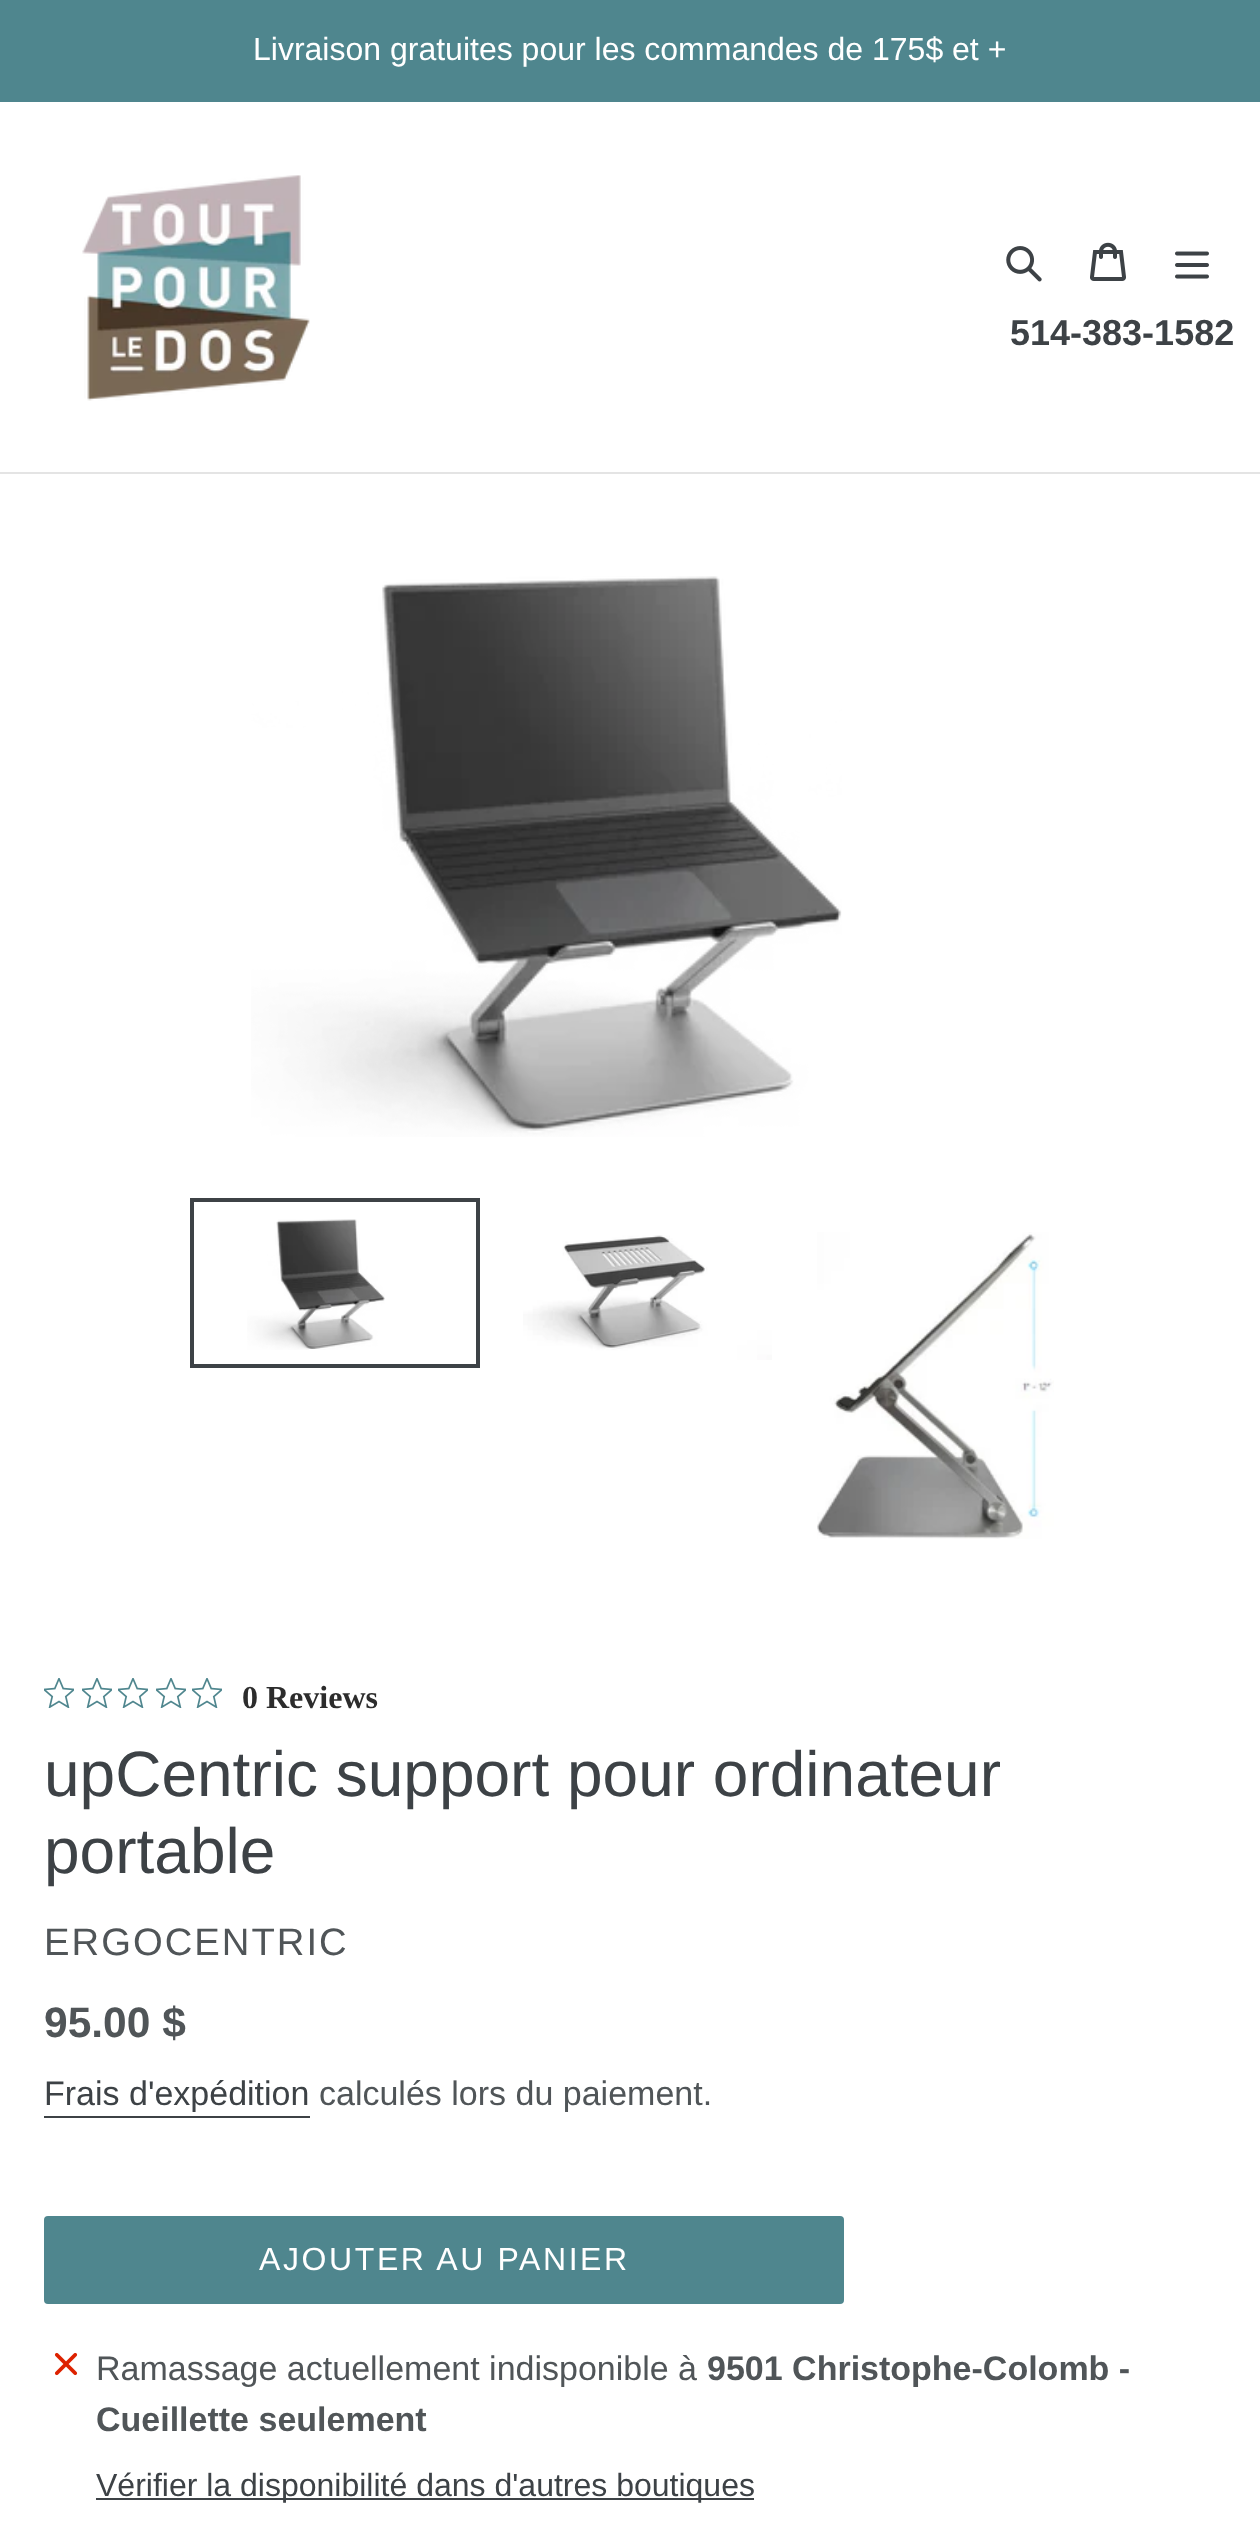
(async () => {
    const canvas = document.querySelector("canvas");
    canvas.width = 1260;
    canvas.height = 2532;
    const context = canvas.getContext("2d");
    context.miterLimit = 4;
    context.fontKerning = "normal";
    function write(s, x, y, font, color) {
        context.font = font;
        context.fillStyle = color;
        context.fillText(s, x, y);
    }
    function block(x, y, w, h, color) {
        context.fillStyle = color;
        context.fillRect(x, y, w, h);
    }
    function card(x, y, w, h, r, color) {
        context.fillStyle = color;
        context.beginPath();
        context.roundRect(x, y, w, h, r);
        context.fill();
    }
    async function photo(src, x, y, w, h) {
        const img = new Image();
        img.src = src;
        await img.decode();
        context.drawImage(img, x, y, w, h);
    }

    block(0, 0, 1260, 2532, "rgb(255, 255, 255)");
    block(0, 0, 1260, 102, "rgb(79, 134, 142)");
    write("Livraison gratuites pour les commandes de 175$ et +", 253, 60, "32px Liberation Sans", "rgb(255, 255, 255)");
    block(0, 472, 1260, 2, "rgb(228, 228, 228)");
    await photo("media/1.png", 82, 175, 228, 226);
    await photo("media/2.png", 1006, 246, 36, 36);
    await photo("media/3.png", 1090, 242, 36, 39);
    await photo("media/4.png", 1175, 251, 34, 28);
    write("514-383-1582", 1010, 345, "bold 36px Liberation Sans", "rgb(61, 66, 70)");
    await photo("media/5.png", 251, 576, 591, 561);
    context.strokeStyle = "rgb(61, 66, 70)";
    context.lineWidth = 4;
    context.strokeRect(192, 1200, 286, 166);
    await photo("media/6.png", 247, 1219, 138, 131);
    await photo("media/7.png", 523, 1235, 249, 125);
    await photo("media/8.png", 817, 1232, 237, 307);
    await photo("media/9.png", 44, 1678, 30, 30);
    await photo("media/9.png", 82, 1678, 30, 30);
    await photo("media/9.png", 118, 1678, 30, 30);
    await photo("media/9.png", 156, 1678, 30, 30);
    await photo("media/9.png", 192, 1678, 30, 30);
    write("0 Reviews", 242, 1708, "bold 32px Liberation Serif", "rgb(44, 44, 44)");
    write("upCentric support pour ordinateur", 44, 1796, "64px Liberation Sans", "rgb(61, 66, 70)");
    write("portable", 44, 1873, "64px Liberation Sans", "rgb(61, 66, 70)");
    context.letterSpacing = "2px";
    write("ERGOCENTRIC", 44, 1955, "38.25px Liberation Sans", "rgb(80, 85, 88)");
    context.letterSpacing = "0px";
    write("95.00 $", 44, 2037, "bold 42.5px Liberation Sans", "rgb(80, 85, 88)");
    write("Frais d'expédition", 44, 2105, "34px Liberation Sans", "rgb(61, 66, 70)");
    block(44, 2116, 266, 2, "rgb(61, 66, 70)");
    write("calculés lors du paiement.", 319, 2105, "34px Liberation Sans", "rgb(80, 85, 88)");
    card(44, 2216, 800, 88, 4, "rgb(79, 134, 142)");
    context.letterSpacing = "2.6px";
    write("AJOUTER AU PANIER", 259, 2270, "32px Liberation Sans", "rgb(255, 255, 255)");
    await photo("media/10.png", 54, 2352, 24, 24);
    context.letterSpacing = "0px";
    write("Ramassage actuellement indisponible à", 96, 2380, "34px Liberation Sans", "rgb(80, 85, 88)");
    write("9501 Christophe-Colomb -", 707, 2380, "bold 34px Liberation Sans", "rgb(80, 85, 88)");
    write("Cueillette seulement", 96, 2431, "bold 34px Liberation Sans", "rgb(80, 85, 88)");
    block(96, 2498, 658, 2, "rgb(61, 66, 70)");
    write("Vérifier la disponibilité dans d'autres boutiques", 96, 2496, "32px Liberation Sans", "rgb(61, 66, 70)");
})();
